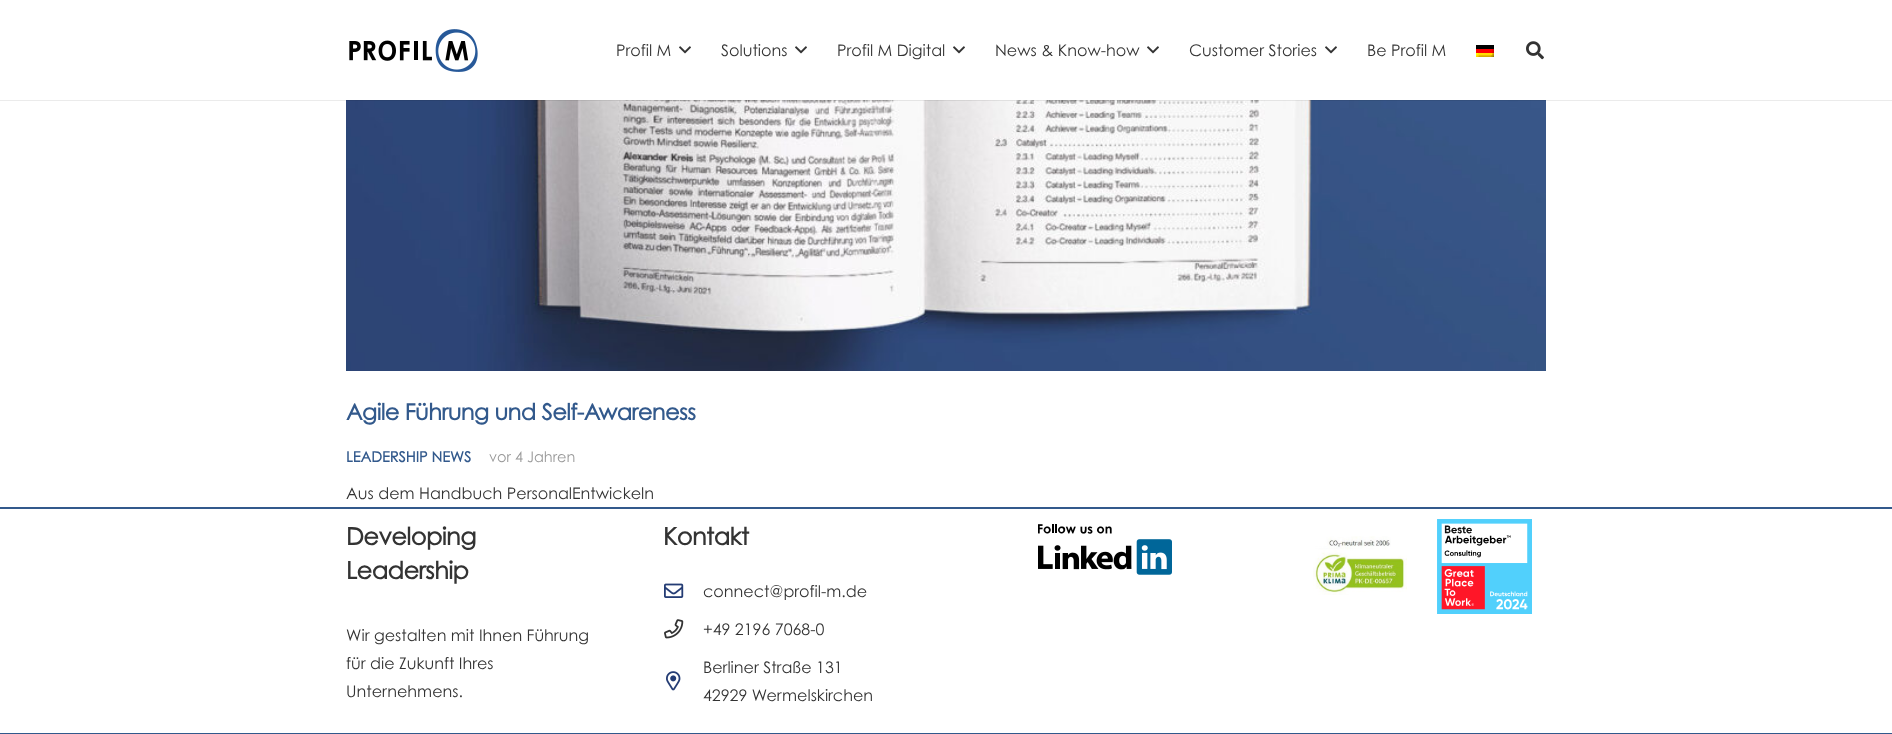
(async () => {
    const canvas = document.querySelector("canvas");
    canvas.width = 1892;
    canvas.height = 734;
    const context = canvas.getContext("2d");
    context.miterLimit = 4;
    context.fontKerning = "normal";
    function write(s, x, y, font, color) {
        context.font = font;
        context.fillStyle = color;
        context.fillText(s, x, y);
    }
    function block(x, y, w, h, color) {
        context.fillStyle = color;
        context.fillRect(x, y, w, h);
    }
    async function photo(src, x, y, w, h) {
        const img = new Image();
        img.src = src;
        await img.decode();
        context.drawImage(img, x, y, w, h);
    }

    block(0, 0, 1892, 734, "rgb(255, 255, 255)");
    await photo("media/5.png", 346, 100, 1200, 271);
    block(0, 100, 1892, 1, "rgba(0, 0, 0, 0.08)");
    await photo("media/1.png", 349, 29, 129, 43);
    write("Profil M", 616, 56, "16px Century Gothic", "rgb(51, 51, 51)");
    await photo("media/2.png", 679, 46, 12, 8);
    write("Solutions", 721, 56, "16px Century Gothic", "rgb(51, 51, 51)");
    await photo("media/2.png", 795, 46, 12, 8);
    write("Profil M Digital", 837, 56, "16px Century Gothic", "rgb(51, 51, 51)");
    await photo("media/2.png", 953, 46, 12, 8);
    write("News & Know-how", 995, 56, "16px Century Gothic", "rgb(51, 51, 51)");
    await photo("media/2.png", 1147, 46, 12, 8);
    write("Customer Stories", 1189, 56, "16px Century Gothic", "rgb(51, 51, 51)");
    await photo("media/2.png", 1325, 46, 12, 8);
    write("Be Profil M", 1367, 56, "16px Century Gothic", "rgb(51, 51, 51)");
    await photo("media/3.png", 1476, 45, 18, 12);
    await photo("media/4.png", 1526, 41, 18, 19);
    context.letterSpacing = "-0.45px";
    write("Agile Führung und Self-Awareness", 346, 420, "bold 22.4px Century Gothic", "rgb(50, 89, 140)");
    context.letterSpacing = "0px";
    write("LEADERSHIP NEWS", 346, 462, "bold 14.5px Century Gothic", "rgb(50, 89, 140)");
    write("vor 4 Jahren", 489, 462, "14.5px Century Gothic", "rgb(153, 153, 153)");
    write("Aus dem Handbuch PersonalEntwickeln", 346, 499, "16px Century Gothic", "rgb(51, 51, 51)");
    block(0, 507, 1892, 2, "rgb(50, 89, 140)");
    context.letterSpacing = "-0.5px";
    write("Developing", 346, 545, "bold 24px Century Gothic", "rgb(51, 51, 51)");
    write("Leadership", 346, 579, "bold 24px Century Gothic", "rgb(51, 51, 51)");
    context.letterSpacing = "0px";
    write("Wir gestalten mit Ihnen Führung", 346, 641, "16px Century Gothic", "rgb(51, 51, 51)");
    write("für die Zukunft Ihres", 346, 669, "16px Century Gothic", "rgb(51, 51, 51)");
    write("Unternehmens.", 346, 697, "16px Century Gothic", "rgb(51, 51, 51)");
    context.letterSpacing = "-0.5px";
    write("Kontakt", 663, 545, "bold 24px Century Gothic", "rgb(51, 51, 51)");
    await photo("media/6.png", 664, 583, 20, 15);
    context.letterSpacing = "0px";
    write("connect@profil-m.de", 703, 597, "16px Century Gothic", "rgb(51, 51, 51)");
    await photo("media/7.png", 664, 619, 20, 20);
    write("+49 2196 7068-0", 703, 635, "16px Century Gothic", "rgb(51, 51, 51)");
    await photo("media/8.png", 666, 671, 15, 20);
    write("Berliner Straße 131", 703, 673, "16px Century Gothic", "rgb(51, 51, 51)");
    write("42929 Wermelskirchen", 703, 701, "16px Century Gothic", "rgb(51, 51, 51)");
    await photo("media/9.png", 1038, 524, 134, 51);
    await photo("media/10.png", 1313, 536, 94, 59);
    await photo("media/11.png", 1437, 519, 95, 95);
    block(0, 733, 1892, 1, "rgb(50, 89, 140)");
})();
